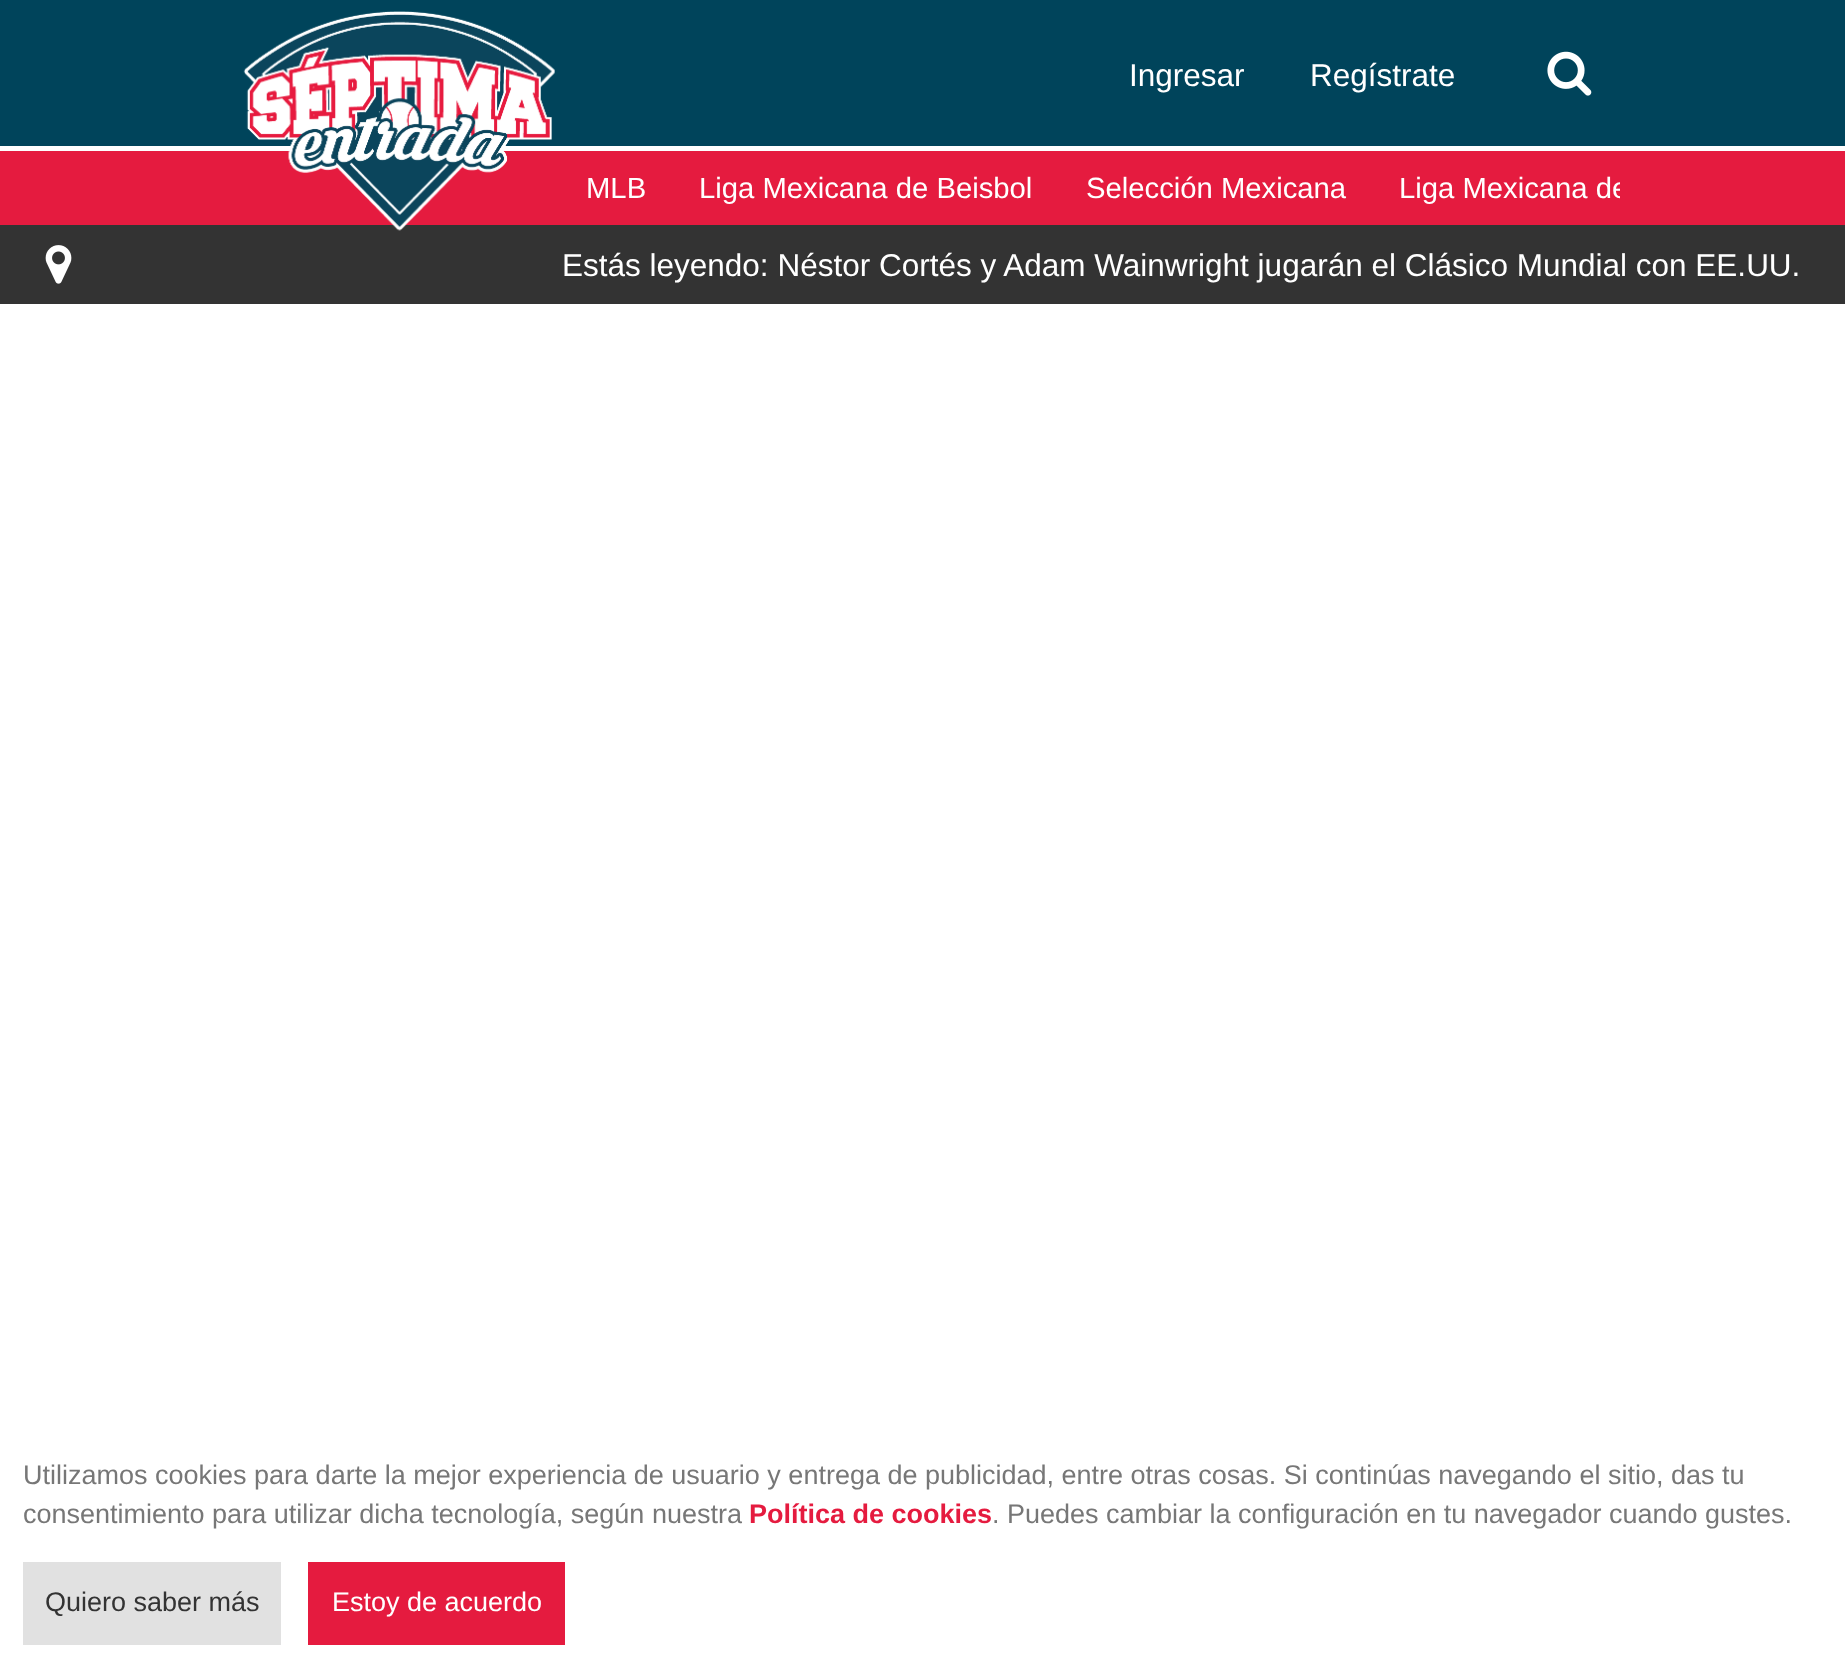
(async () => {
    const canvas = document.querySelector("canvas");
    canvas.width = 1845;
    canvas.height = 1666;
    const context = canvas.getContext("2d");
    context.miterLimit = 4;
    context.fontKerning = "normal";
    function write(s, x, y, font, color) {
        context.font = font;
        context.fillStyle = color;
        context.fillText(s, x, y);
    }
    function block(x, y, w, h, color) {
        context.fillStyle = color;
        context.fillRect(x, y, w, h);
    }
    async function photo(src, x, y, w, h) {
        const img = new Image();
        img.src = src;
        await img.decode();
        context.drawImage(img, x, y, w, h);
    }

    block(0, 0, 1845, 1666, "rgb(255, 255, 255)");
    block(0, 0, 1845, 146, "rgb(0, 68, 91)");
    block(0, 151, 1845, 74, "rgb(229, 27, 63)");
    block(0, 225, 1845, 79, "rgb(51, 51, 51)");
    await photo("media/1.png", 243, 11, 312, 220);
    write("Ingresar", 1129, 86, "31.5px Liberation Sans", "rgb(255, 255, 255)");
    write("Regístrate", 1310, 86, "31.5px Liberation Sans", "rgb(255, 255, 255)");
    await photo("media/2.png", 1547, 51, 45, 45);
    write("MLB", 586, 198, "29.25px Liberation Sans", "rgb(255, 255, 255)");
    write("Liga Mexicana de Beisbol", 699, 198, "29.25px Liberation Sans", "rgb(255, 255, 255)");
    write("Selección Mexicana", 1086, 198, "29.25px Liberation Sans", "rgb(255, 255, 255)");
    context.save();
    context.beginPath();
    context.rect(587, 151, 1033, 74);
    context.clip();
    write("Liga Mexicana de", 1399, 198, "29.25px Liberation Sans", "rgb(255, 255, 255)");
    context.restore();
    await photo("media/3.png", 45, 245, 27, 39);
    write("Estás leyendo: Néstor Cortés y Adam Wainwright jugarán el Clásico Mundial con EE.UU.", 562, 276, "31.5px Liberation Sans", "rgb(255, 255, 255)");
    write("Utilizamos cookies para darte la mejor experiencia de usuario y entrega de publicidad, entre otras cosas. Si continúas navegando el sitio, das tu", 23, 1484, "27px Liberation Sans", "rgb(119, 119, 119)");
    write("consentimiento para utilizar dicha tecnología, según nuestra", 23, 1523, "27px Liberation Sans", "rgb(119, 119, 119)");
    write("Política de cookies", 749, 1523, "bold 27px Liberation Sans", "rgb(229, 27, 63)");
    write(". Puedes cambiar la configuración en tu navegador cuando gustes.", 992, 1523, "27px Liberation Sans", "rgb(119, 119, 119)");
    block(23, 1562, 258, 83, "rgb(225, 225, 225)");
    write("Quiero saber más", 45, 1611, "27px Liberation Sans", "rgb(51, 51, 51)");
    block(308, 1562, 257, 83, "rgb(229, 27, 63)");
    write("Estoy de acuerdo", 332, 1611, "27px Liberation Sans", "rgb(255, 255, 255)");
})();
